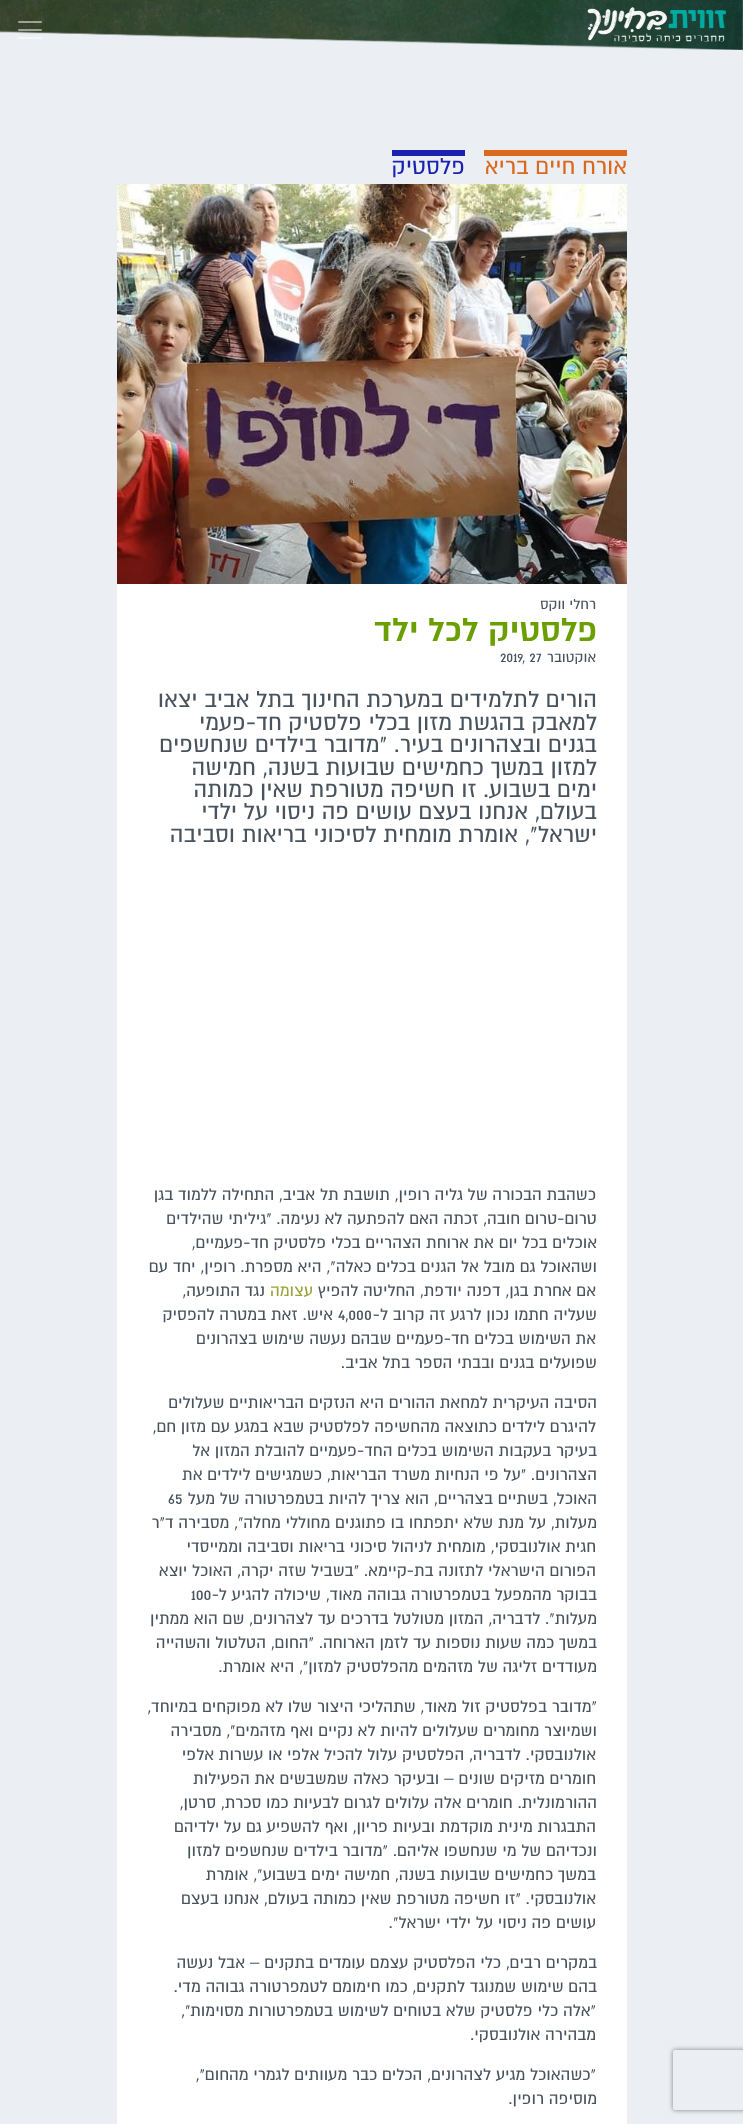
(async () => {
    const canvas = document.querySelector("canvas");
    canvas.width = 743;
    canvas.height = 2124;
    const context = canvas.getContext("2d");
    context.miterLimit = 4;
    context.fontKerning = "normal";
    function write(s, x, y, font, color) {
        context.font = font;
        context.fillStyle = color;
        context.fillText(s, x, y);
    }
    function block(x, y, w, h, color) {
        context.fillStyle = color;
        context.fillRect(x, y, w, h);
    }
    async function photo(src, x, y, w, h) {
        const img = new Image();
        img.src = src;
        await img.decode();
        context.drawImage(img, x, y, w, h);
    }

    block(0, 0, 743, 2124, "rgb(235, 239, 243)");
    context.save();
    context.beginPath();
    context.moveTo(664, 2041);
    context.lineTo(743, 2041);
    context.lineTo(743, 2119);
    context.lineTo(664, 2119);
    context.closePath();
    context.moveTo(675, 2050);
    context.lineTo(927, 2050);
    context.bezierCurveTo(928, 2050, 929, 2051, 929, 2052);
    context.lineTo(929, 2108);
    context.bezierCurveTo(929, 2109, 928, 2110, 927, 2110);
    context.lineTo(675, 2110);
    context.bezierCurveTo(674, 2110, 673, 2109, 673, 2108);
    context.lineTo(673, 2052);
    context.bezierCurveTo(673, 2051, 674, 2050, 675, 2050);
    context.closePath();
    context.clip("evenodd");
    context.fillStyle = "rgb(128, 128, 128)";
    context.filter = "blur(2.5px)";
    context.beginPath();
    context.roundRect(673, 2050, 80, 60, 2);
    context.fill();
    context.filter = "none";
    context.restore();
    await photo("media/1.png", 0, 0, 743, 50);
    await photo("media/2.png", 587, 7, 139, 35);
    await photo("media/3.png", 18, 21, 24, 18);
    block(484, 150, 143, 6, "rgb(219, 105, 29)");
    context.direction = "rtl";
    write("אורח חיים בריא", 627, 174, "22.4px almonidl", "rgb(219, 105, 29)");
    block(392, 150, 73, 6, "rgb(27, 34, 175)");
    write("פלסטיק", 465, 174, "22.4px almonidl", "rgb(27, 34, 175)");
    await photo("media/4.png", 117, 184, 510, 400);
    block(117, 584, 510, 1540, "rgb(255, 255, 255)");
    write("רחלי ווקס", 596, 609, "14px almonidl", "rgb(72, 83, 93)");
    write("פלסטיק לכל ילד", 597, 641, "32px 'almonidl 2'", "rgb(107, 159, 0)");
    write("אוקטובר", 596, 662, "14px almonidl", "rgb(72, 83, 93)");
    context.direction = "ltr";
    write("2019, 27", 500, 662, "14px almonidl", "rgb(72, 83, 93)");
    context.direction = "rtl";
    write("הורים לתלמידים במערכת החינוך בתל אביב יצאו", 597, 707, "22.4px almonidl", "rgb(72, 83, 93)");
    write("למאבק בהגשת מזון בכלי פלסטיק חד-פעמי", 597, 730, "22.4px almonidl", "rgb(72, 83, 93)");
    write("בגנים ובצהרונים בעיר. \"מדובר בילדים שנחשפים", 597, 752, "22.4px almonidl", "rgb(72, 83, 93)");
    write("למזון במשך כחמישים שבועות בשנה, חמישה", 597, 775, "22.4px almonidl", "rgb(72, 83, 93)");
    write("ימים בשבוע. זו חשיפה מטורפת שאין כמותה", 597, 797, "22.4px almonidl", "rgb(72, 83, 93)");
    write("בעולם, אנחנו בעצם עושים פה ניסוי על ילדי", 597, 819, "22.4px almonidl", "rgb(72, 83, 93)");
    write("ישראל\", אומרת מומחית לסיכוני בריאות וסביבה", 597, 842, "22.4px almonidl", "rgb(72, 83, 93)");
    write("כשהבת הבכורה של גליה רופין, תושבת תל אביב, התחילה ללמוד בגן", 596, 1200, "16px almonidl", "rgb(72, 83, 93)");
    write("טרום-טרום חובה, זכתה האם להפתעה לא נעימה. \"גיליתי שהילדים", 597, 1224, "16px almonidl", "rgb(72, 83, 93)");
    write("אוכלים בכל יום את ארוחת הצהריים בכלי פלסטיק חד-פעמיים,", 597, 1248, "16px almonidl", "rgb(72, 83, 93)");
    write("ושהאוכל גם מובל אל הגנים בכלים כאלה\", היא מספרת. רופין, יחד עם", 597, 1272, "16px almonidl", "rgb(72, 83, 93)");
    write("אם אחרת בגן, דפנה יודפת, החליטה להפיץ", 596, 1296, "16px almonidl", "rgb(72, 83, 93)");
    write("עצומה", 313, 1296, "16px almonidl", "rgb(154, 162, 57)");
    write("נגד התופעה,", 265, 1296, "16px almonidl", "rgb(72, 83, 93)");
    write("שעליה חתמו נכון לרגע זה קרוב ל-", 597, 1320, "16px almonidl", "rgb(72, 83, 93)");
    context.direction = "ltr";
    write("4,000", 338, 1320, "16px almonidl", "rgb(72, 83, 93)");
    context.direction = "rtl";
    write("איש. זאת במטרה להפסיק", 333, 1320, "16px almonidl", "rgb(72, 83, 93)");
    write("את השימוש בכלים חד-פעמיים שבהם נעשה שימוש בצהרונים", 596, 1344, "16px almonidl", "rgb(72, 83, 93)");
    write("שפועלים בגנים ובבתי הספר בתל אביב.", 597, 1368, "16px almonidl", "rgb(72, 83, 93)");
    write("הסיבה העיקרית למחאת ההורים היא הנזקים הבריאותיים שעלולים", 597, 1408, "16px almonidl", "rgb(72, 83, 93)");
    write("להיגרם לילדים כתוצאה מהחשיפה לפלסטיק שבא במגע עם מזון חם,", 596, 1432, "16px almonidl", "rgb(72, 83, 93)");
    write("בעיקר בעקבות השימוש בכלים החד-פעמיים להובלת המזון אל", 597, 1456, "16px almonidl", "rgb(72, 83, 93)");
    write("הצהרונים. \"על פי הנחיות משרד הבריאות, כשמגישים לילדים את", 597, 1480, "16px almonidl", "rgb(72, 83, 93)");
    write("האוכל, בשתיים בצהריים, הוא צריך להיות בטמפרטורה של מעל", 597, 1504, "16px almonidl", "rgb(72, 83, 93)");
    context.direction = "ltr";
    write("65", 168, 1504, "16px almonidl", "rgb(72, 83, 93)");
    context.direction = "rtl";
    write("מעלות, על מנת שלא יתפתחו בו פתוגנים מחוללי מחלה\", מסבירה ד\"ר", 597, 1528, "16px almonidl", "rgb(72, 83, 93)");
    write("חגית אולנובסקי, מומחית לניהול סיכוני בריאות וסביבה וממייסדי", 596, 1552, "16px almonidl", "rgb(72, 83, 93)");
    write("הפורום הישראלי לתזונה בת-קיימא. \"בשביל שזה יקרה, האוכל יוצא", 596, 1576, "16px almonidl", "rgb(72, 83, 93)");
    write("בבוקר מהמפעל בטמפרטורה גבוהה מאוד, שיכולה להגיע ל-", 597, 1600, "16px almonidl", "rgb(72, 83, 93)");
    context.direction = "ltr";
    write("100", 191, 1600, "16px almonidl", "rgb(72, 83, 93)");
    context.direction = "rtl";
    write("מעלות\". לדבריה, המזון מטולטל בדרכים עד לצהרונים, שם הוא ממתין", 597, 1624, "16px almonidl", "rgb(72, 83, 93)");
    write("במשך כמה שעות נוספות עד לזמן הארוחה. \"החום, הטלטול והשהייה", 597, 1648, "16px almonidl", "rgb(72, 83, 93)");
    write("מעודדים זליגה של מזהמים מהפלסטיק למזון\", היא אומרת.", 597, 1672, "16px almonidl", "rgb(72, 83, 93)");
    write("\"מדובר בפלסטיק זול מאוד, שתהליכי היצור שלו לא מפוקחים במיוחד,", 597, 1712, "16px almonidl", "rgb(72, 83, 93)");
    write("ושמיוצר מחומרים שעלולים להיות לא נקיים ואף מזהמים\", מסבירה", 597, 1736, "16px almonidl", "rgb(72, 83, 93)");
    write("אולנובסקי. לדבריה, הפלסטיק עלול להכיל אלפי או עשרות אלפי", 596, 1760, "16px almonidl", "rgb(72, 83, 93)");
    write("חומרים מזיקים שונים – ובעיקר כאלה שמשבשים את הפעילות", 596, 1784, "16px almonidl", "rgb(72, 83, 93)");
    write("ההורמונלית. חומרים אלה עלולים לגרום לבעיות כמו סכרת, סרטן,", 597, 1808, "16px almonidl", "rgb(72, 83, 93)");
    write("התבגרות מינית מוקדמת ובעיות פריון, ואף להשפיע גם על ילדיהם", 596, 1832, "16px almonidl", "rgb(72, 83, 93)");
    write("ונכדיהם של מי שנחשפו אליהם. \"מדובר בילדים שנחשפים למזון", 597, 1856, "16px almonidl", "rgb(72, 83, 93)");
    write("במשך כחמישים שבועות בשנה, חמישה ימים בשבוע\", אומרת", 596, 1880, "16px almonidl", "rgb(72, 83, 93)");
    write("אולנובסקי. \"זו חשיפה מטורפת שאין כמותה בעולם, אנחנו בעצם", 596, 1904, "16px almonidl", "rgb(72, 83, 93)");
    write("עושים פה ניסוי על ילדי ישראל\".", 596, 1928, "16px almonidl", "rgb(72, 83, 93)");
    write("במקרים רבים, כלי הפלסטיק עצמם עומדים בתקנים – אבל נעשה", 597, 1968, "16px almonidl", "rgb(72, 83, 93)");
    write("בהם שימוש שמנוגד לתקנים, כמו חימומם לטמפרטורה גבוהה מדי.", 597, 1992, "16px almonidl", "rgb(72, 83, 93)");
    write("\"אלה כלי פלסטיק שלא בטוחים לשימוש בטמפרטורות מסוימות\",", 596, 2016, "16px almonidl", "rgb(72, 83, 93)");
    write("מבהירה אולנובסקי.", 596, 2040, "16px almonidl", "rgb(72, 83, 93)");
    write("\"כשהאוכל מגיע לצהרונים, הכלים כבר מעוותים לגמרי מהחום\",", 596, 2080, "16px almonidl", "rgb(72, 83, 93)");
    write("מוסיפה רופין.", 597, 2104, "16px almonidl", "rgb(72, 83, 93)");
})();
